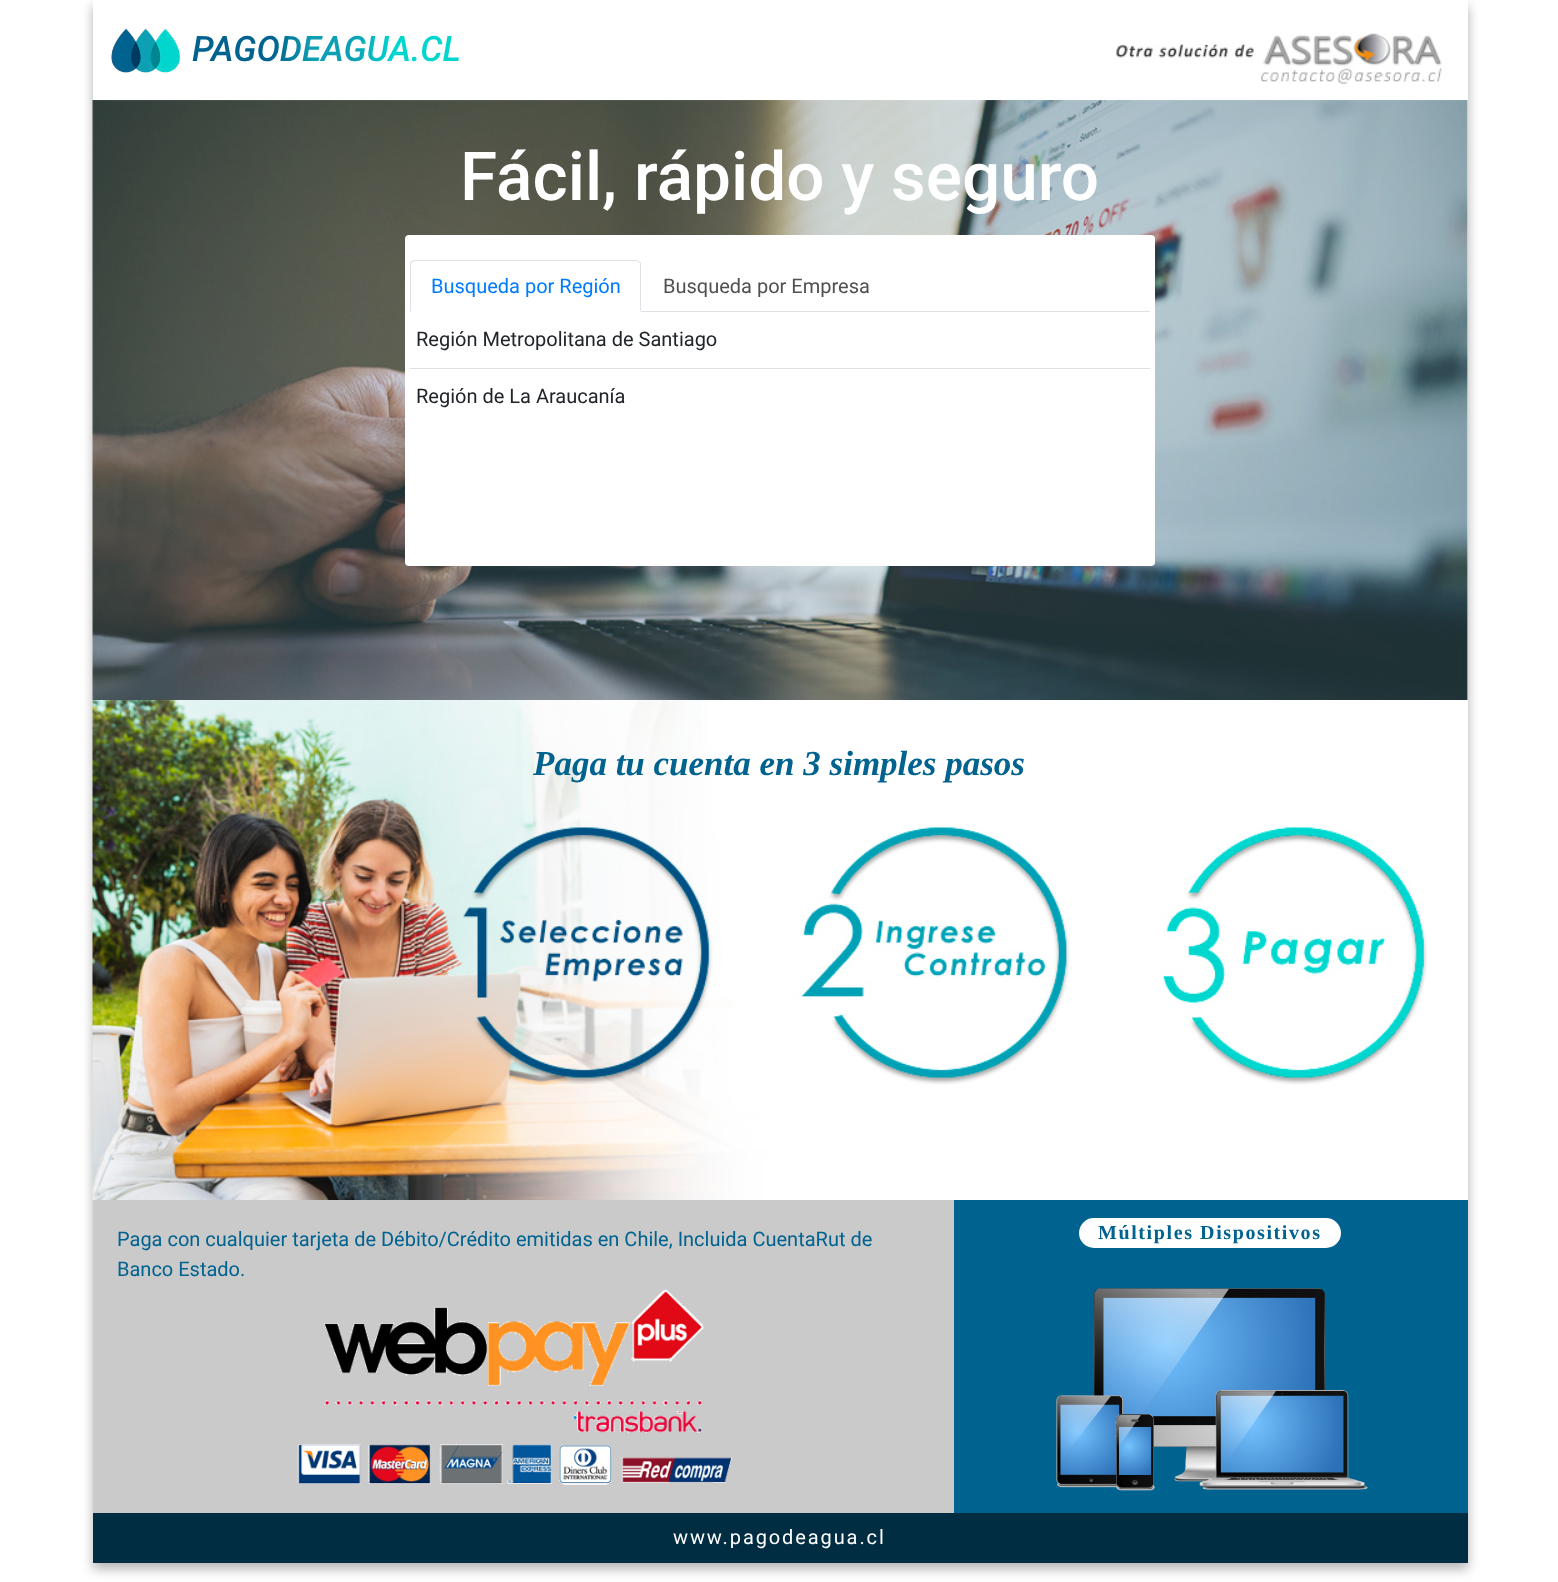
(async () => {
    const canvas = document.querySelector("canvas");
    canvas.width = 1558;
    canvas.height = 1582;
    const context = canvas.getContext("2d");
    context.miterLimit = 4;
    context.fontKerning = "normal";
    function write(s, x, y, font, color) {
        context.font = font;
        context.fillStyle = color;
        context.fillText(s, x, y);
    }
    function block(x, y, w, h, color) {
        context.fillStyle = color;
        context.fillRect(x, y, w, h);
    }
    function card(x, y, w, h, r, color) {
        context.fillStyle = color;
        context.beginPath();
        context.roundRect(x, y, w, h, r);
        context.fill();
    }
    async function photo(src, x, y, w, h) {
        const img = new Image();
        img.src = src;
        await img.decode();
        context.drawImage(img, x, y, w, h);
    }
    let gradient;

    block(0, 0, 1558, 1582, "rgb(255, 255, 255)");
    context.fillStyle = "rgba(0, 0, 0, 0.3)";
    context.filter = "blur(6px)";
    context.beginPath();
    context.rect(93, 6, 1375, 1563);
    context.fill();
    context.filter = "none";
    block(93, 0, 1375, 1200, "rgb(255, 255, 255)");
    await photo("media/1.png", 111, 28, 69, 45);
    context.font = "italic 500 35px Roboto";
    gradient = context.createLinearGradient(192, 24, 461, 24);
    gradient.addColorStop(0, "rgb(0, 98, 143)");
    gradient.addColorStop(0.3, "rgb(0, 98, 143)");
    gradient.addColorStop(0.45, "rgb(13, 160, 180)");
    gradient.addColorStop(0.6, "rgb(13, 160, 180)");
    gradient.addColorStop(0.75, "rgb(0, 214, 206)");
    gradient.addColorStop(1, "rgb(0, 214, 206)");
    context.fillStyle = gradient;
    context.fillText("PAGODEAGUA.CL", 192, 61);
    await photo("media/2.png", 1116, 33, 326, 51);
    await photo("media/3.png", 92, 100, 1376, 600);
    write("Fácil, rápido y seguro", 460, 200, "500 67.5px Roboto", "rgb(255, 255, 255)");
    card(405, 235, 750, 331, 4, "rgb(255, 255, 255)");
    block(641, 311, 509, 1, "rgb(222, 226, 230)");
    context.beginPath();
    context.moveTo(415, 260);
    context.bezierCurveTo(414, 260, 412, 260, 411, 261);
    context.lineTo(412, 262);
    context.lineTo(415, 261);
    context.lineTo(636, 261);
    context.lineTo(639, 262);
    context.lineTo(640, 262);
    context.bezierCurveTo(639, 261, 638, 260, 636, 260);
    context.closePath();
    context.fill();
    context.beginPath();
    context.moveTo(640, 262);
    context.bezierCurveTo(641, 262, 641, 264, 641, 265);
    context.lineTo(641, 312);
    context.lineTo(640, 311);
    context.lineTo(640, 265);
    context.bezierCurveTo(640, 264, 640, 263, 639, 262);
    context.closePath();
    context.fill();
    context.fillStyle = "rgb(255, 255, 255)";
    context.beginPath();
    context.moveTo(641, 312);
    context.lineTo(410, 312);
    context.lineTo(412, 311);
    context.lineTo(640, 311);
    context.closePath();
    context.fill();
    context.fillStyle = "rgb(222, 226, 230)";
    context.beginPath();
    context.moveTo(410, 265);
    context.lineTo(410, 312);
    context.lineTo(412, 311);
    context.lineTo(411, 311);
    context.lineTo(411, 265);
    context.bezierCurveTo(411, 264, 412, 263, 412, 262);
    context.lineTo(411, 261);
    context.bezierCurveTo(410, 262, 410, 264, 410, 265);
    context.closePath();
    context.fill();
    write("Busqueda por Región", 431, 293, "20px Roboto", "rgb(0, 123, 255)");
    write("Busqueda por Empresa", 663, 293, "20px Roboto", "rgb(80, 80, 80)");
    block(410, 368, 740, 1, "rgb(223, 223, 223)");
    write("Región Metropolitana de Santiago", 416, 346, "20px Roboto", "rgb(33, 37, 41)");
    write("Región de La Araucanía", 416, 403, "20px Roboto", "rgb(33, 37, 41)");
    await photo("media/4.png", 92, 700, 1335, 500);
    write("Paga tu cuenta en 3 simples pasos", 533, 775, "italic bold 35px Liberation Serif", "rgb(0, 98, 143)");
    block(93, 1200, 861, 313, "rgb(202, 202, 202)");
    write("Paga con cualquier tarjeta de Débito/Crédito emitidas en Chile, Incluida CuentaRut de", 117, 1246, "20px Roboto", "rgb(0, 98, 143)");
    write("Banco Estado.", 117, 1276, "20px Roboto", "rgb(0, 98, 143)");
    await photo("media/5.png", 297, 1289, 435, 196);
    block(954, 1200, 514, 313, "rgb(0, 98, 143)");
    card(1079, 1218, 262, 30, 15, "rgb(255, 255, 255)");
    context.letterSpacing = "1.6px";
    write("Múltiples Dispositivos", 1098, 1239, "bold 20px Liberation Serif", "rgb(0, 98, 143)");
    await photo("media/6.png", 1056, 1288, 312, 203);
    block(93, 1513, 1375, 50, "rgb(0, 45, 66)");
    context.letterSpacing = "1.9px";
    write("www.pagodeagua.cl", 673, 1544, "20px Roboto", "rgb(255, 255, 255)");
})();
